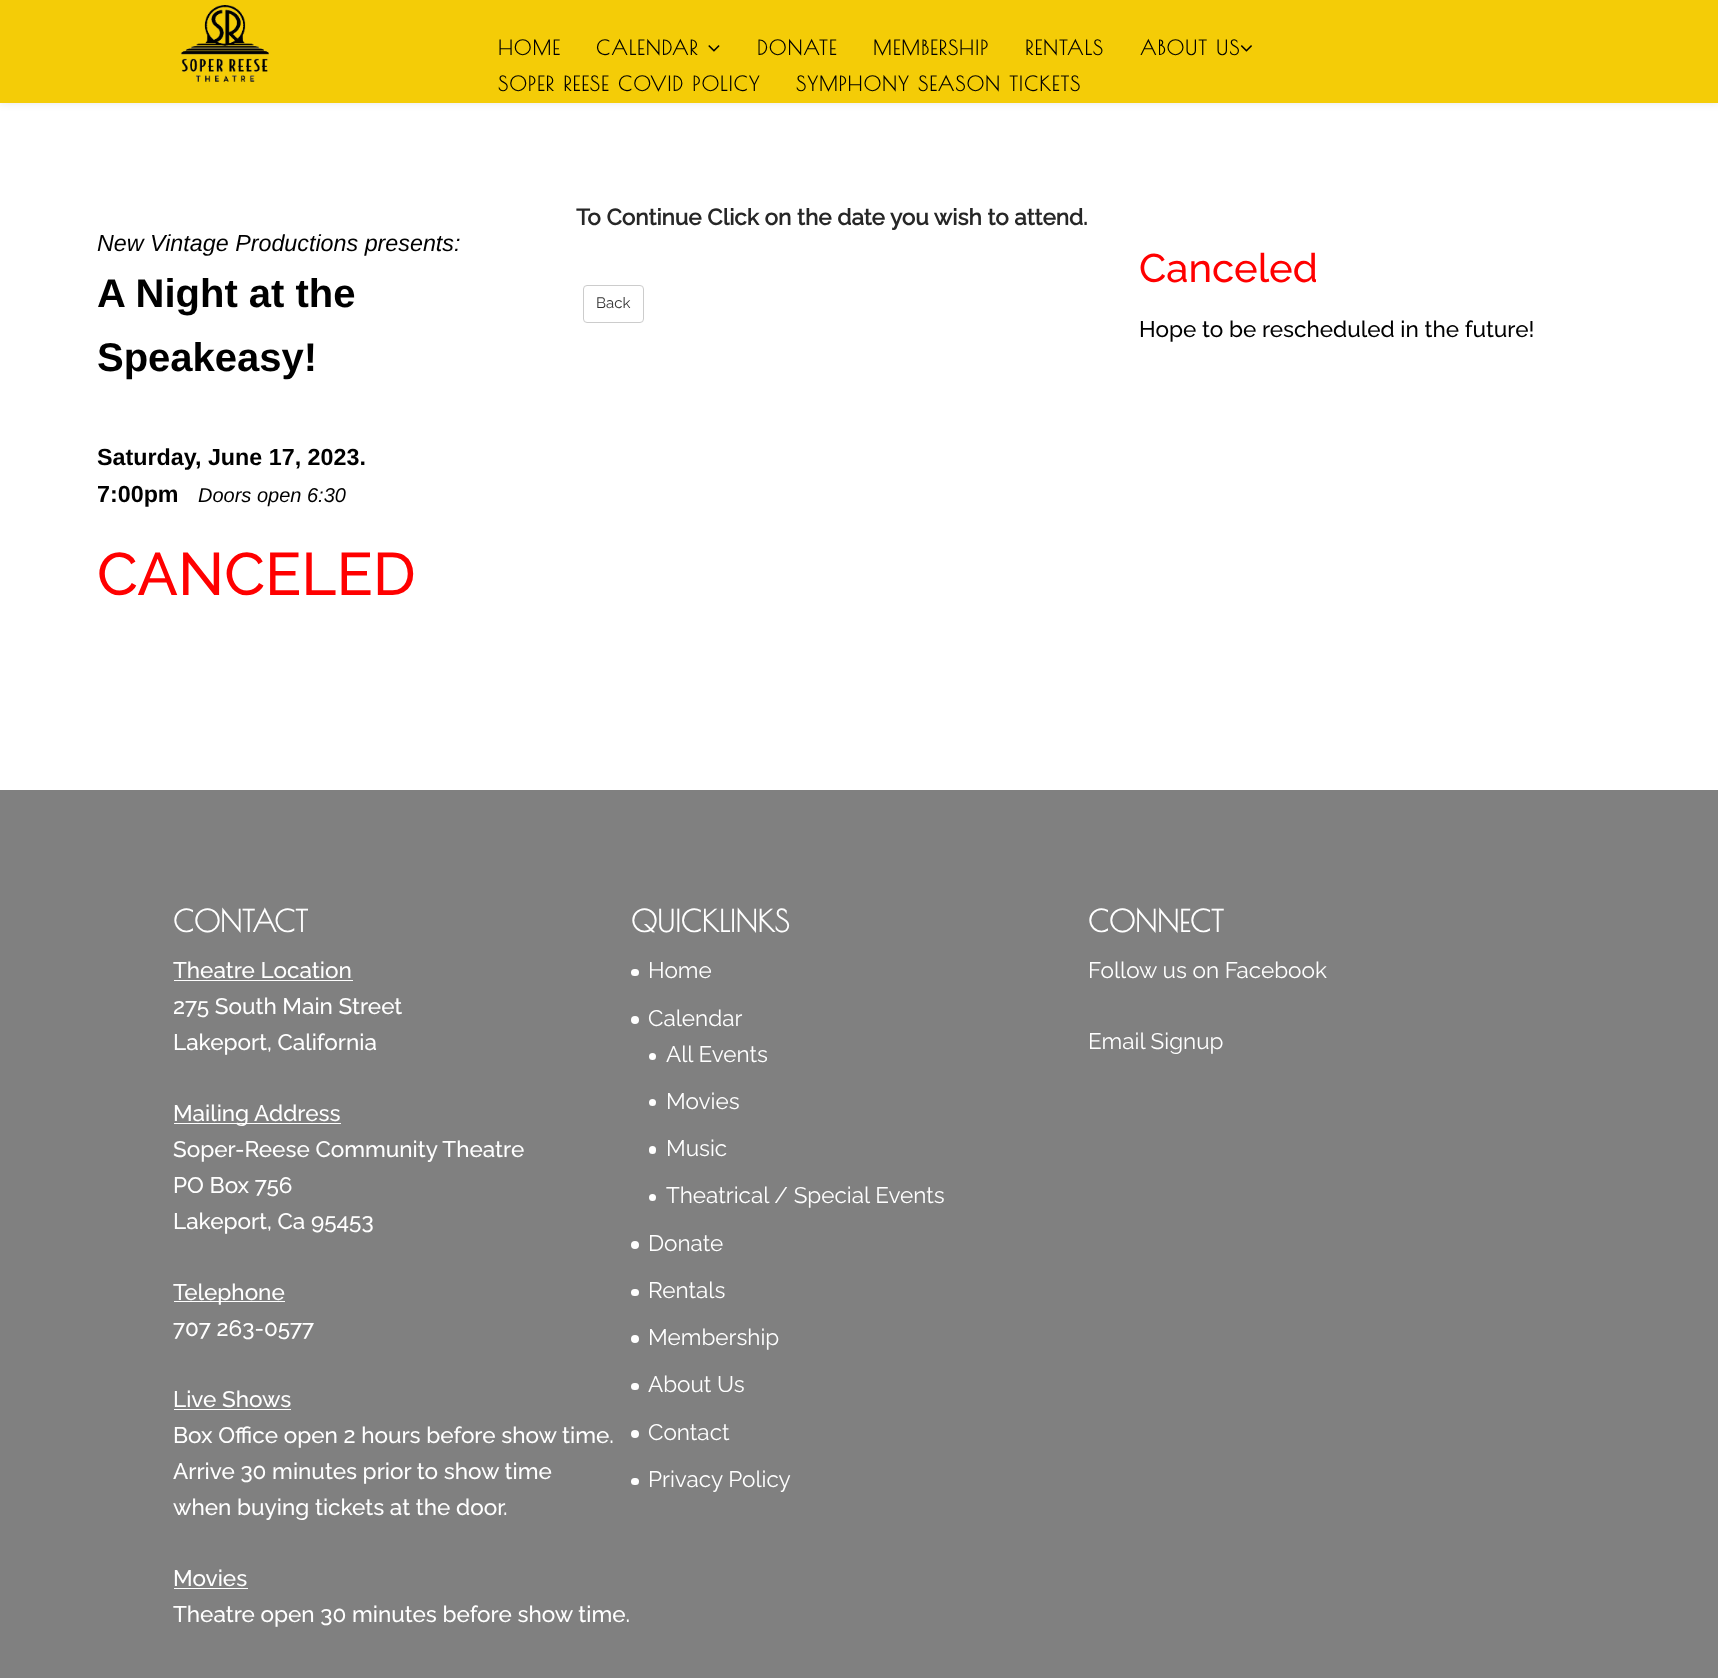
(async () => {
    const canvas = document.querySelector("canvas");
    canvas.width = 1718;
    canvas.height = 1678;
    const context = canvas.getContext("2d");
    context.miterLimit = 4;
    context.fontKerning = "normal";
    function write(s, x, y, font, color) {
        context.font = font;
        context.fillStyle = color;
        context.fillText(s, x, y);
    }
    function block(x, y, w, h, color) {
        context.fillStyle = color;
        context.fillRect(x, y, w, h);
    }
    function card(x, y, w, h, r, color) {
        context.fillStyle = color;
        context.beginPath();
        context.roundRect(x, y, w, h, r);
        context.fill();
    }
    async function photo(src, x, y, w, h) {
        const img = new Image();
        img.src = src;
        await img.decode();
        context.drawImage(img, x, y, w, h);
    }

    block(0, 0, 1718, 1678, "rgb(255, 255, 255)");
    context.fillStyle = "rgba(0, 0, 0, 0.1)";
    context.filter = "blur(4.5px)";
    context.beginPath();
    context.rect(0, 0, 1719, 103);
    context.fill();
    context.filter = "none";
    block(0, 0, 1718, 103, "rgb(244, 204, 7)");
    await photo("media/1.png", 180, 5, 89, 77);
    context.letterSpacing = "1.25px";
    write("HOME", 498, 55, "bold 20px Poiret One", "rgb(0, 0, 0)");
    write("CALENDAR", 596, 55, "bold 20px Poiret One", "rgb(0, 0, 0)");
    await photo("media/2.png", 708, 45, 12, 7);
    write("DONATE", 757, 55, "bold 20px Poiret One", "rgb(0, 0, 0)");
    write("MEMBERSHIP", 873, 55, "bold 20px Poiret One", "rgb(0, 0, 0)");
    write("RENTALS", 1025, 55, "bold 20px Poiret One", "rgb(0, 0, 0)");
    write("ABOUT US", 1140, 55, "bold 20px Poiret One", "rgb(0, 0, 0)");
    await photo("media/3.png", 1240, 45, 12, 7);
    write("SOPER REESE COVID POLICY", 498, 91, "bold 20px Poiret One", "rgb(0, 0, 0)");
    write("SYMPHONY SEASON TICKETS", 796, 91, "bold 20px Poiret One", "rgb(0, 0, 0)");
    context.letterSpacing = "0px";
    write("New Vintage Productions presents:", 97, 251, "italic 23.3px Liberation Sans", "rgb(0, 0, 0)");
    write("A Night at the", 97, 307, "bold 40px Liberation Sans", "rgb(0, 0, 0)");
    write("Speakeasy!", 97, 371, "bold 40px Liberation Sans", "rgb(0, 0, 0)");
    write("Saturday, June 17, 2023.", 97, 465, "bold 23.3px Liberation Sans", "rgb(0, 0, 0)");
    write("7:00pm", 97, 502, "bold 23.3px Liberation Sans", "rgb(0, 0, 0)");
    write("Doors open 6:30", 198, 502, "italic 20px Liberation Sans", "rgb(0, 0, 0)");
    write("CANCELED", 97, 595, "500 60px Raleway", "rgb(255, 0, 0)");
    write("To Continue Click on the date you wish to attend.", 576, 225, "bold 22.5px Raleway", "rgb(39, 39, 39)");
    context.beginPath();
    context.roundRect(583.5, 285.5, 60, 37, 3.5);
    context.strokeStyle = "rgb(204, 204, 204)";
    context.stroke();
    write("Back", 596, 308, "15px Raleway", "rgb(51, 51, 51)");
    write("Canceled", 1139, 282, "500 40px Raleway", "rgb(255, 0, 0)");
    write("Hope to be rescheduled in the future!", 1139, 337, "500 22.5px Raleway", "rgb(0, 0, 0)");
    block(0, 790, 1718, 888, "rgb(128, 128, 128)");
    write("CONTACT", 173, 932, "bold 30px Poiret One", "rgb(255, 255, 255)");
    write("Theatre Location", 173, 978, "500 22.5px Raleway", "rgb(255, 255, 255)");
    block(174, 980, 179, 1, "rgb(255, 255, 255)");
    write("275 South Main Street", 173, 1014, "500 22.5px Raleway", "rgb(255, 255, 255)");
    write("Lakeport, California", 173, 1050, "500 22.5px Raleway", "rgb(255, 255, 255)");
    block(174, 1123, 167, 1, "rgb(255, 255, 255)");
    write("Mailing Address", 173, 1121, "500 22.5px Raleway", "rgb(255, 255, 255)");
    write("Soper-Reese Community Theatre", 173, 1157, "500 22.5px Raleway", "rgb(255, 255, 255)");
    write("PO Box 756", 173, 1193, "500 22.5px Raleway", "rgb(255, 255, 255)");
    write("Lakeport, Ca 95453", 173, 1229, "500 22.5px Raleway", "rgb(255, 255, 255)");
    block(174, 1301, 111, 1, "rgb(255, 255, 255)");
    write("Telephone", 173, 1300, "500 22.5px Raleway", "rgb(255, 255, 255)");
    write("707 263-0577", 173, 1336, "500 22.5px Raleway", "rgb(255, 255, 255)");
    write("Live Shows", 173, 1407, "500 22.5px Raleway", "rgb(255, 255, 255)");
    block(174, 1409, 117, 1, "rgb(255, 255, 255)");
    write("Box Office open 2 hours before show time.", 173, 1443, "500 22.5px Raleway", "rgb(255, 255, 255)");
    write("Arrive 30 minutes prior to show time", 173, 1479, "500 22.5px Raleway", "rgb(255, 255, 255)");
    write("when buying tickets at the door.", 173, 1515, "500 22.5px Raleway", "rgb(255, 255, 255)");
    write("Movies", 173, 1586, "500 22.5px Raleway", "rgb(255, 255, 255)");
    block(174, 1588, 74, 1, "rgb(255, 255, 255)");
    write("Theatre open 30 minutes before show time.", 173, 1622, "500 22.5px Raleway", "rgb(255, 255, 255)");
    write("QUICKLINKS", 631, 932, "bold 30px Poiret One", "rgb(255, 255, 255)");
    card(631, 969, 8, 7, 3.5, "rgb(255, 255, 255)");
    write("Home", 648, 978, "22.5px Raleway", "rgb(255, 255, 255)");
    context.beginPath();
    context.arc(635, 1020, 4, 0, Math.PI * 2);
    context.fill();
    write("Calendar", 648, 1026, "22.5px Raleway", "rgb(255, 255, 255)");
    context.beginPath();
    context.arc(652.5, 1056.5, 3.5, 0, Math.PI * 2);
    context.fill();
    write("All Events", 666, 1062, "22.5px Raleway", "rgb(255, 255, 255)");
    context.beginPath();
    context.arc(652.5, 1102.5, 3.5, 0, Math.PI * 2);
    context.fill();
    write("Movies", 666, 1109, "22.5px Raleway", "rgb(255, 255, 255)");
    card(649, 1146, 7, 8, 3.5, "rgb(255, 255, 255)");
    write("Music", 666, 1156, "22.5px Raleway", "rgb(255, 255, 255)");
    context.beginPath();
    context.arc(652.5, 1197.5, 3.5, 0, Math.PI * 2);
    context.fill();
    write("Theatrical / Special Events", 666, 1203, "22.5px Raleway", "rgb(255, 255, 255)");
    context.beginPath();
    context.arc(635, 1245, 4, 0, Math.PI * 2);
    context.fill();
    write("Donate", 648, 1251, "22.5px Raleway", "rgb(255, 255, 255)");
    card(631, 1289, 8, 7, 3.5, "rgb(255, 255, 255)");
    write("Rentals", 648, 1298, "22.5px Raleway", "rgb(255, 255, 255)");
    context.beginPath();
    context.arc(635, 1339, 4, 0, Math.PI * 2);
    context.fill();
    write("Membership", 648, 1345, "22.5px Raleway", "rgb(255, 255, 255)");
    card(631, 1383, 8, 7, 3.5, "rgb(255, 255, 255)");
    write("About Us", 648, 1392, "22.5px Raleway", "rgb(255, 255, 255)");
    context.beginPath();
    context.arc(635, 1434, 4, 0, Math.PI * 2);
    context.fill();
    write("Contact", 648, 1440, "22.5px Raleway", "rgb(255, 255, 255)");
    card(631, 1478, 8, 7, 3.5, "rgb(255, 255, 255)");
    write("Privacy Policy", 648, 1487, "22.5px Raleway", "rgb(255, 255, 255)");
    write("CONNECT", 1088, 932, "bold 30px Poiret One", "rgb(255, 255, 255)");
    write("Follow us on Facebook", 1088, 978, "22.5px Raleway", "rgb(255, 255, 255)");
    write("Email Signup", 1088, 1049, "22.5px Raleway", "rgb(255, 255, 255)");
})();
